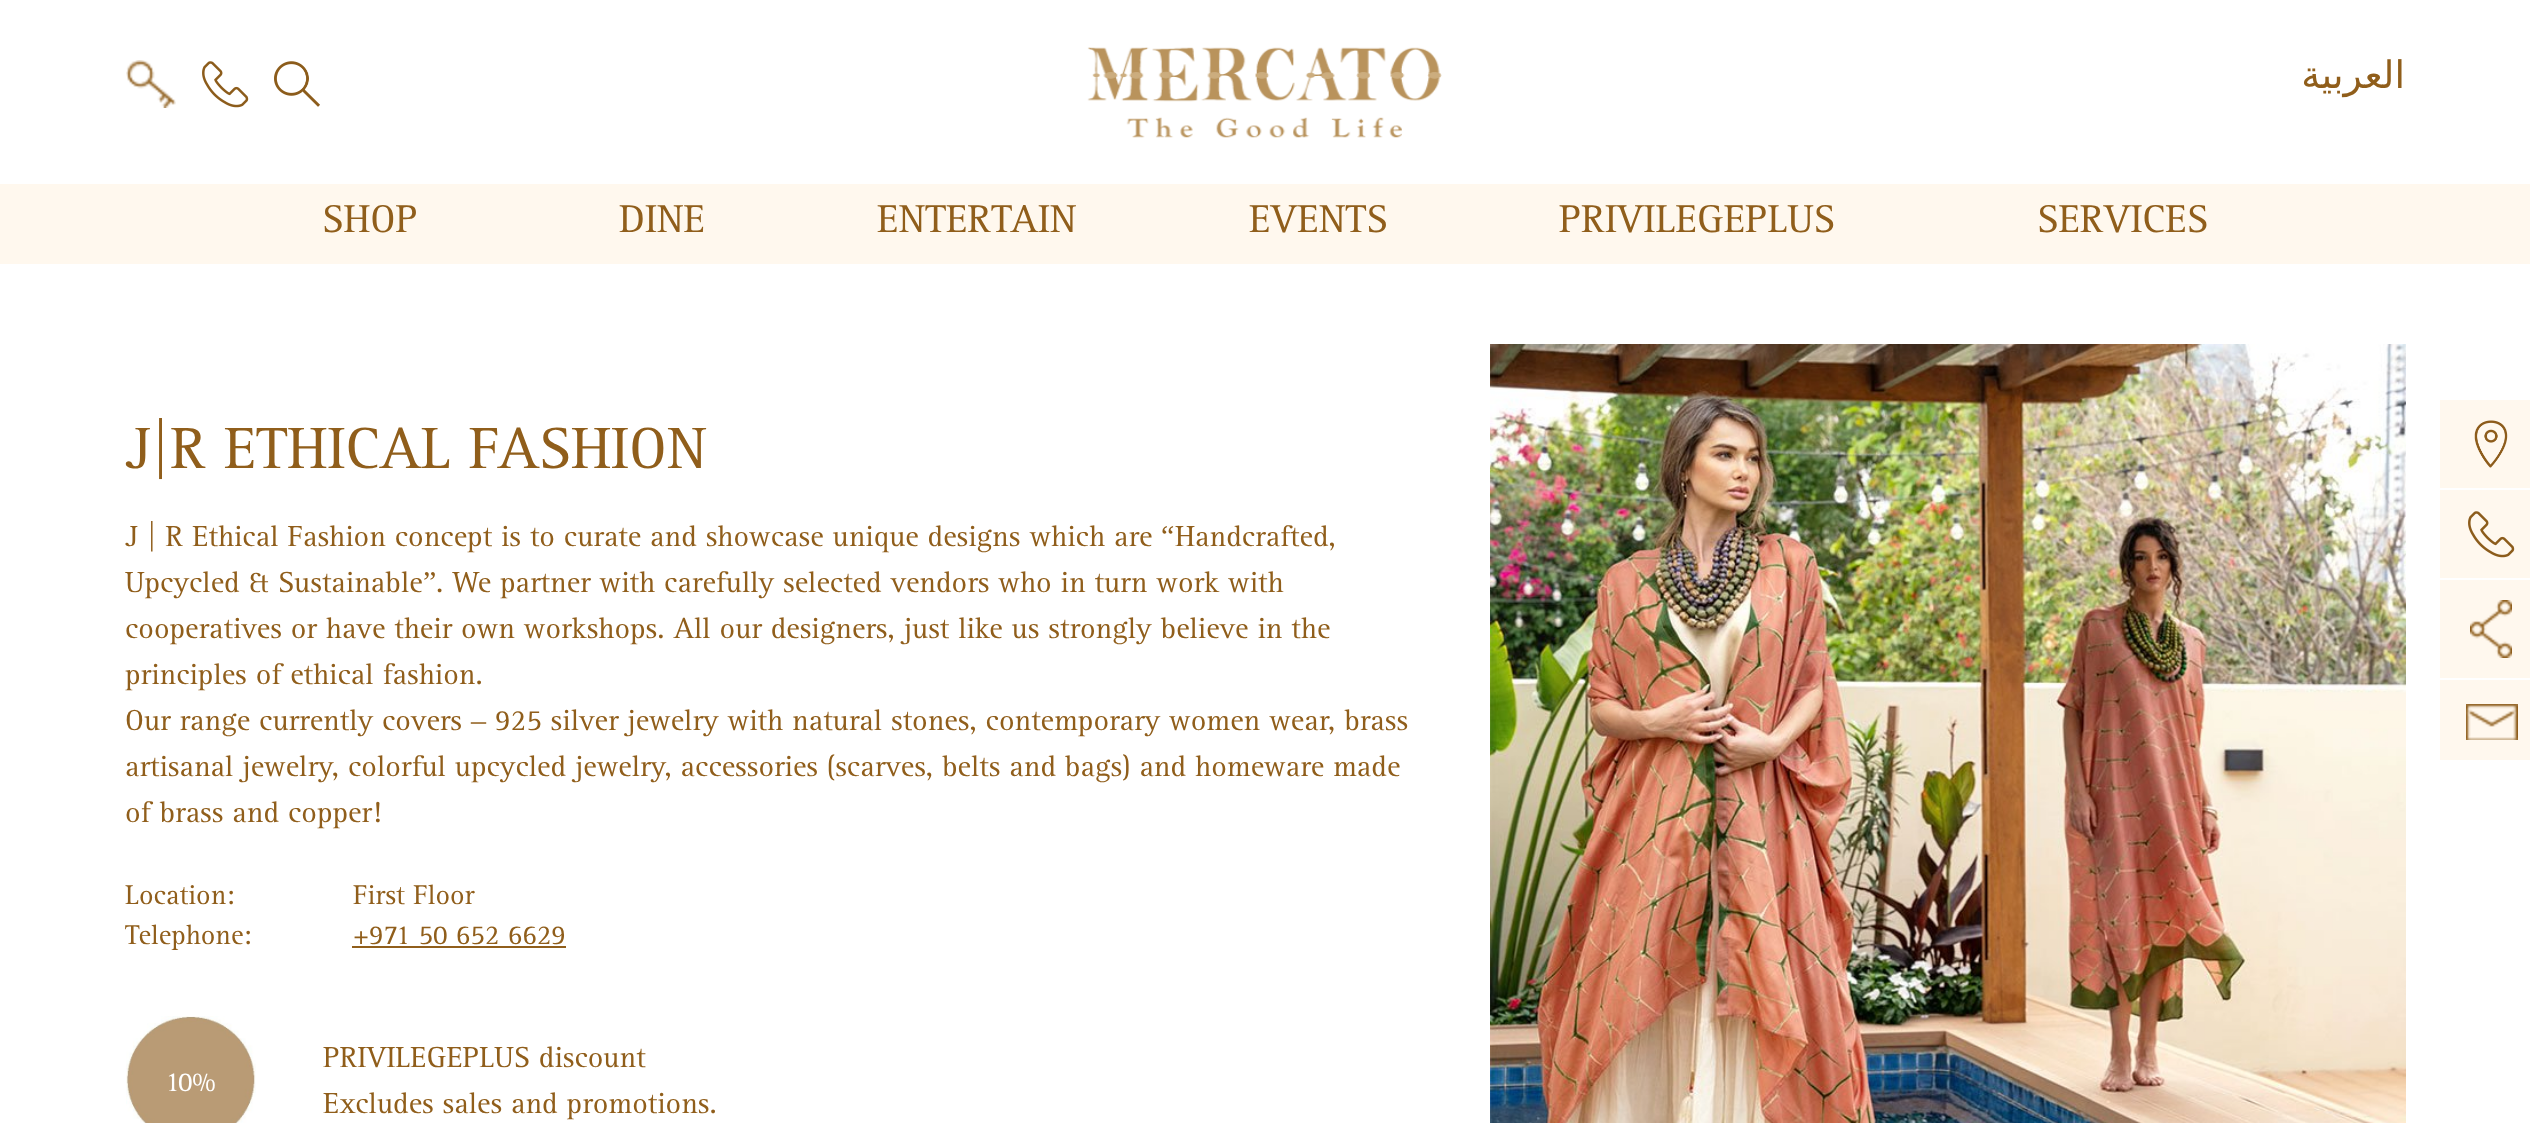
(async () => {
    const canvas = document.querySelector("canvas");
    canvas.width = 2530;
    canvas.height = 1123;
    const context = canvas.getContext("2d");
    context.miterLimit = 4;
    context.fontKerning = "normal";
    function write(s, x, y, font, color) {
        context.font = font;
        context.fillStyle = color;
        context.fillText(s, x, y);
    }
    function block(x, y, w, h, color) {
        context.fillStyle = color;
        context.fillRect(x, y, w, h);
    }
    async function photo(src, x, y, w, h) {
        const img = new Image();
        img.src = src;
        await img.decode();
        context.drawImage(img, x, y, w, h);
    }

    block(0, 0, 2530, 1123, "rgb(255, 255, 255)");
    await photo("media/1.png", 126, 60, 50, 48);
    await photo("media/2.png", 202, 61, 47, 47);
    await photo("media/3.png", 274, 61, 46, 46);
    await photo("media/4.png", 1087, 47, 355, 91);
    context.direction = "rtl";
    write("العربية", 2405, 88, "38px DejaVu Sans", "rgb(144, 94, 27)");
    block(0, 184, 2530, 80, "rgb(255, 248, 238)");
    context.direction = "ltr";
    write("SHOP", 322, 232, "40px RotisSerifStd", "rgb(144, 94, 27)");
    write("DINE", 619, 232, "40px RotisSerifStd", "rgb(144, 94, 27)");
    write("ENTERTAIN", 877, 232, "40px RotisSerifStd", "rgb(144, 94, 27)");
    write("EVENTS", 1249, 232, "40px RotisSerifStd", "rgb(144, 94, 27)");
    write("PRIVILEGEPLUS", 1559, 232, "40px RotisSerifStd", "rgb(144, 94, 27)");
    write("SERVICES", 2037, 232, "40px RotisSerifStd", "rgb(144, 94, 27)");
    write("J|R ETHICAL FASHION", 125, 468, "60px RotisSerifStd", "rgb(144, 94, 27)");
    write("J | R Ethical Fashion concept is to curate and showcase unique designs which are", 125, 546, "30px RotisSerifStd", "rgb(144, 94, 27)");
    write("“", 1161, 546, "30px Liberation Serif", "rgb(144, 94, 27)");
    write("Handcrafted,", 1175, 546, "30px RotisSerifStd", "rgb(144, 94, 27)");
    write("Upcycled & Sustainable", 125, 592, "30px RotisSerifStd", "rgb(144, 94, 27)");
    write("”", 423, 592, "30px Liberation Serif", "rgb(144, 94, 27)");
    write(". We partner with carefully selected vendors who in turn work with", 436, 592, "30px RotisSerifStd", "rgb(144, 94, 27)");
    write("cooperatives or have their own workshops. All our designers, just like us strongly believe in the", 125, 638, "30px RotisSerifStd", "rgb(144, 94, 27)");
    write("principles of ethical fashion.", 125, 684, "30px RotisSerifStd", "rgb(144, 94, 27)");
    write("Our range currently covers", 125, 730, "30px RotisSerifStd", "rgb(144, 94, 27)");
    write("–", 471, 730, "30px Liberation Serif", "rgb(144, 94, 27)");
    write("925 silver jewelry with natural stones, contemporary women wear, brass", 495, 730, "30px RotisSerifStd", "rgb(144, 94, 27)");
    write("artisanal jewelry, colorful upcycled jewelry, accessories (scarves, belts and bags) and homeware made", 125, 776, "30px RotisSerifStd", "rgb(144, 94, 27)");
    write("of brass and copper!", 125, 822, "30px RotisSerifStd", "rgb(144, 94, 27)");
    write("Location:", 125, 904, "28px RotisSerifStd", "rgb(144, 94, 27)");
    write("First Floor", 353, 904, "28px RotisSerifStd", "rgb(144, 94, 27)");
    write("Telephone:", 125, 944, "28px RotisSerifStd", "rgb(144, 94, 27)");
    write("+971 50 652 6629", 353, 944, "28px RotisSerifStd", "rgb(144, 94, 27)");
    block(352, 946, 214, 2, "rgb(144, 94, 27)");
    await photo("media/5.png", 126, 1016, 130, 107);
    write("10%", 165, 1091, "28px RotisSerifStd", "rgb(255, 255, 255)");
    write("PRIVILEGEPLUS discount", 323, 1067, "30px RotisSerifStd", "rgb(144, 94, 27)");
    write("Excludes sales and promotions.", 323, 1113, "30px RotisSerifStd", "rgb(144, 94, 27)");
    await photo("media/6.png", 1490, 344, 916, 779);
    block(2440, 400, 90, 88, "rgb(255, 248, 238)");
    await photo("media/7.png", 2474, 420, 34, 48);
    block(2440, 490, 90, 88, "rgb(255, 248, 238)");
    await photo("media/8.png", 2468, 511, 47, 47);
    block(2440, 580, 90, 98, "rgb(255, 248, 238)");
    await photo("media/9.png", 2470, 600, 42, 58);
    block(2440, 680, 90, 80, "rgb(255, 248, 238)");
    await photo("media/10.png", 2466, 704, 52, 36);
})();
